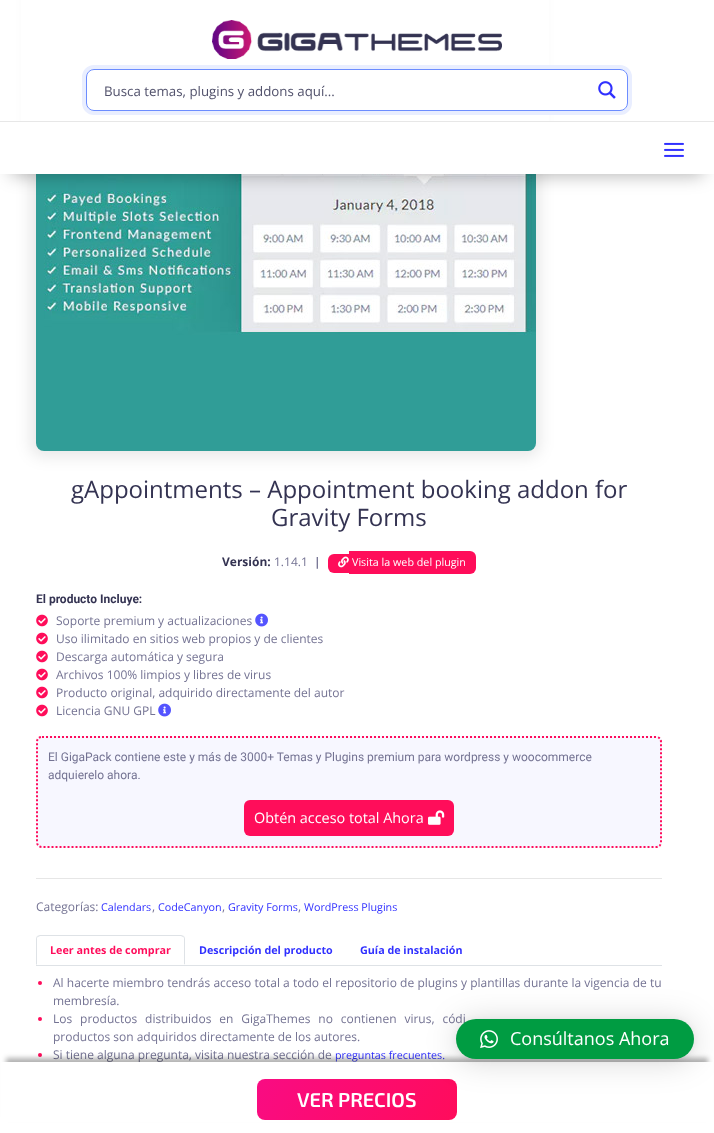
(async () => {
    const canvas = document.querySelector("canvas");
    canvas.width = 714;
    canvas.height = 1133;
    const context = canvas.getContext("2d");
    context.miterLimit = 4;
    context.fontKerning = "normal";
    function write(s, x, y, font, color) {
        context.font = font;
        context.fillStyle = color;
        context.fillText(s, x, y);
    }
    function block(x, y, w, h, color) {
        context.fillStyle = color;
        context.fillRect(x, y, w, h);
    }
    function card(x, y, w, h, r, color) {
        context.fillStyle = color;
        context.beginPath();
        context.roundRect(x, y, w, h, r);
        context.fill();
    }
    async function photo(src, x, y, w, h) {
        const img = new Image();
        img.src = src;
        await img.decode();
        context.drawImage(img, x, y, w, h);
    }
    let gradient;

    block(0, 0, 714, 1133, "rgb(255, 255, 255)");
    context.fillStyle = "rgba(0, 0, 0, 0.09)";
    context.filter = "blur(7.5px)";
    context.beginPath();
    context.roundRect(30, -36, 510, 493, 13);
    context.fill();
    context.filter = "none";
    block(21, 0, 528, 121, "rgb(255, 255, 255)");
    await photo("media/1.png", 212, 20, 290, 39);
    context.beginPath();
    context.roundRect(84, 67, 546, 46, 10);
    context.strokeStyle = "rgb(233, 238, 255)";
    context.lineWidth = 4;
    context.stroke();
    context.beginPath();
    context.roundRect(86.5, 69.5, 541, 41, 7.5);
    context.fill();
    context.strokeStyle = "rgb(108, 141, 255)";
    context.lineWidth = 1;
    context.stroke();
    write("Busca temas, plugins y addons aquí...", 104, 96, "13.3px Open Sans", "rgb(82, 82, 108)");
    await photo("media/2.png", 598, 81, 18, 18);
    await photo("media/4.png", 36, 174, 500, 277);
    context.fillStyle = "rgba(0, 0, 0, 0.3)";
    context.filter = "blur(9px)";
    context.beginPath();
    context.rect(11, 144, 692, 31);
    context.fill();
    context.filter = "none";
    block(0, 122, 714, 52, "rgb(255, 255, 255)");
    block(0, 121, 714, 1, "rgb(231, 231, 231)");
    await photo("media/3.png", 664, 142, 20, 15);
    write("gAppointments – Appointment booking addon for", 71, 498, "24px Open Sans", "rgb(52, 51, 82)");
    write("Gravity Forms", 271, 526, "24px Open Sans", "rgb(52, 51, 82)");
    write("Versión:", 222, 566, "bold 12px Open Sans", "rgb(52, 51, 82)");
    write("1.14.1", 274, 566, "12px Open Sans", "rgb(116, 115, 147)");
    write("|", 314, 566, "bold 12px Open Sans", "rgb(116, 115, 147)");
    context.fillStyle = "rgb(255, 13, 90)";
    context.beginPath();
    context.roundRect(328, 554, 21, 19, [6, 0, 0, 6]);
    context.fill();
    context.beginPath();
    context.roundRect(349, 551, 127, 23, [0, 6, 6, 0]);
    context.fill();
    await photo("media/5.png", 338, 556, 11, 12);
    write("Visita la web del plugin", 352, 566, "10.75px Open Sans", "rgb(255, 255, 255)");
    write("El producto Incluye:", 36, 603, "bold 12px Roboto", "rgb(52, 51, 82)");
    await photo("media/6.png", 36, 614, 12, 13);
    write("Soporte premium y actualizaciones", 56, 625, "12px Open Sans", "rgb(116, 115, 147)");
    await photo("media/7.png", 255, 613, 13, 14);
    await photo("media/6.png", 36, 632, 12, 13);
    write("Uso ilimitado en sitios web propios y de clientes", 56, 643, "12px Open Sans", "rgb(116, 115, 147)");
    await photo("media/6.png", 36, 650, 12, 13);
    write("Descarga automática y segura", 56, 661, "12px Open Sans", "rgb(116, 115, 147)");
    await photo("media/6.png", 36, 668, 12, 13);
    write("Archivos 100% limpios y libres de virus", 56, 679, "12px Open Sans", "rgb(116, 115, 147)");
    await photo("media/6.png", 36, 686, 12, 13);
    write("Producto original, adquirido directamente del autor", 56, 697, "12px Open Sans", "rgb(116, 115, 147)");
    await photo("media/6.png", 36, 704, 12, 13);
    write("Licencia GNU GPL", 56, 715, "12px Open Sans", "rgb(116, 115, 147)");
    await photo("media/7.png", 158, 703, 13, 14);
    card(36, 736, 626, 112, 6, "rgb(247, 247, 255)");
    context.beginPath();
    context.moveTo(42, 737);
    context.lineTo(656, 737);
    context.bezierCurveTo(659, 737, 661, 739, 661, 742);
    context.lineTo(661, 842);
    context.bezierCurveTo(661, 845, 659, 847, 656, 847);
    context.lineTo(42, 847);
    context.bezierCurveTo(39, 847, 37, 845, 37, 842);
    context.lineTo(37, 742);
    context.bezierCurveTo(37, 739, 39, 737, 42, 737);
    context.closePath();
    context.strokeStyle = "rgb(255, 12, 91)";
    context.lineWidth = 2;
    context.setLineDash([2, 2]);
    context.stroke();
    write("El GigaPack contiene este y más de 3000+ Temas y Plugins premium para wordpress y woocommerce", 48, 761, "12px Roboto", "rgb(116, 115, 147)");
    write("adquierelo ahora.", 48, 779, "12px Roboto", "rgb(116, 115, 147)");
    card(244, 800, 210, 36, 6, "rgb(255, 13, 90)");
    write("Obtén acceso total Ahora", 254, 823, "14.4px Open Sans", "rgb(255, 255, 255)");
    await photo("media/8.png", 428, 810, 17, 15);
    block(36, 878, 626, 1, "rgb(230, 230, 230)");
    write("Categorías:", 36, 911, "12px Open Sans", "rgb(116, 115, 147)");
    write("Calendars", 101, 911, "10.75px Open Sans", "rgb(48, 48, 255)");
    write(",", 152, 911, "12px Open Sans", "rgb(116, 115, 147)");
    write("CodeCanyon", 158, 911, "10.75px Open Sans", "rgb(48, 48, 255)");
    write(",", 222, 911, "12px Open Sans", "rgb(116, 115, 147)");
    write("Gravity Forms", 228, 911, "10.75px Open Sans", "rgb(48, 48, 255)");
    write(",", 298, 911, "12px Open Sans", "rgb(116, 115, 147)");
    write("WordPress Plugins", 304, 911, "10.75px Open Sans", "rgb(48, 48, 255)");
    block(36, 965, 626, 1, "rgb(222, 226, 230)");
    context.beginPath();
    context.moveTo(40, 935);
    context.lineTo(37, 936);
    context.lineTo(38, 937);
    context.lineTo(40, 936);
    context.lineTo(181, 936);
    context.lineTo(183, 937);
    context.lineTo(184, 936);
    context.lineTo(181, 935);
    context.closePath();
    context.fill();
    context.beginPath();
    context.moveTo(185, 965);
    context.lineTo(185, 939);
    context.bezierCurveTo(185, 938, 184.5, 937, 184, 936);
    context.lineTo(183, 937);
    context.bezierCurveTo(184, 937, 184, 938, 184, 939);
    context.lineTo(184, 964);
    context.closePath();
    context.fill();
    context.fillStyle = "rgb(255, 255, 255)";
    context.beginPath();
    context.moveTo(185, 965);
    context.lineTo(184, 964);
    context.lineTo(37, 964);
    context.lineTo(36, 965);
    context.closePath();
    context.fill();
    context.fillStyle = "rgb(222, 226, 230)";
    context.beginPath();
    context.moveTo(36, 965);
    context.lineTo(37, 964);
    context.lineTo(37, 939);
    context.bezierCurveTo(37, 938, 37, 937, 38, 937);
    context.lineTo(37, 936);
    context.bezierCurveTo(36.5, 937, 36, 938, 36, 939);
    context.closePath();
    context.fill();
    write("Leer antes de comprar", 50, 954, "bold 10.75px Open Sans", "rgb(255, 12, 91)");
    write("Descripción del producto", 199, 954, "bold 10.75px Open Sans", "rgb(48, 48, 255)");
    write("Guía de instalación", 360, 954, "bold 10.75px Open Sans", "rgb(48, 48, 255)");
    context.fillStyle = "rgb(255, 12, 91)";
    context.beginPath();
    context.arc(40, 983, 2, 0, Math.PI * 2);
    context.fill();
    context.wordSpacing = "0.1px";
    write("Al hacerte miembro tendrás acceso total a todo el repositorio de plugins y plantillas durante la vigencia de tu", 53, 987, "12px Open Sans", "rgb(116, 115, 147)");
    context.wordSpacing = "0px";
    write("membresía.", 53, 1005, "12px Open Sans", "rgb(116, 115, 147)");
    context.fillStyle = "rgb(255, 12, 91)";
    context.beginPath();
    context.arc(40, 1019, 2, 0, Math.PI * 2);
    context.fill();
    context.wordSpacing = "4.75px";
    write("Los productos distribuidos en GigaThemes no contienen virus, códi", 53, 1023, "12px Open Sans", "rgb(116, 115, 147)");
    context.wordSpacing = "0px";
    write("productos son adquiridos directamente de los autores.", 53, 1041, "12px Open Sans", "rgb(116, 115, 147)");
    context.fillStyle = "rgb(255, 12, 91)";
    context.beginPath();
    context.arc(40, 1055, 2, 0, Math.PI * 2);
    context.fill();
    write("Si tiene alguna pregunta, visita nuestra sección de", 53, 1059, "12px Open Sans", "rgb(116, 115, 147)");
    write("preguntas frecuentes.", 335, 1059, "10.75px Open Sans", "rgb(48, 48, 255)");
    context.fillStyle = "rgba(0, 0, 0, 0.3)";
    context.filter = "blur(2.5px)";
    context.beginPath();
    context.rect(6, 1058, 702, 59);
    context.fill();
    context.filter = "none";
    block(1, 1062, 712, 60, "rgb(255, 255, 255)");
    gradient = context.createLinearGradient(274, 1050, 440, 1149);
    gradient.addColorStop(0, "rgb(249, 12, 131)");
    gradient.addColorStop(1, "rgb(255, 12, 91)");
    context.fillStyle = gradient;
    context.beginPath();
    context.roundRect(257, 1079, 200, 41, 8);
    context.fill();
    write("VER PRECIOS", 297, 1107, "600 20px 'Exo 2'", "rgb(255, 255, 255)");
    context.fillStyle = "rgba(0, 0, 0, 0.16)";
    context.filter = "blur(16px)";
    context.beginPath();
    context.roundRect(456, 1021, 238, 40, 20);
    context.fill();
    context.filter = "none";
    context.fillStyle = "rgba(0, 0, 0, 0.06)";
    context.filter = "blur(3px)";
    context.beginPath();
    context.roundRect(456, 1020, 238, 40, 20);
    context.fill();
    context.filter = "none";
    card(456, 1019, 238, 40, 20, "rgb(0, 156, 66)");
    await photo("media/9.png", 480, 1030, 18, 19);
    write("Consúltanos Ahora", 510, 1045, "18px Open Sans", "rgb(255, 255, 255)");
})();
